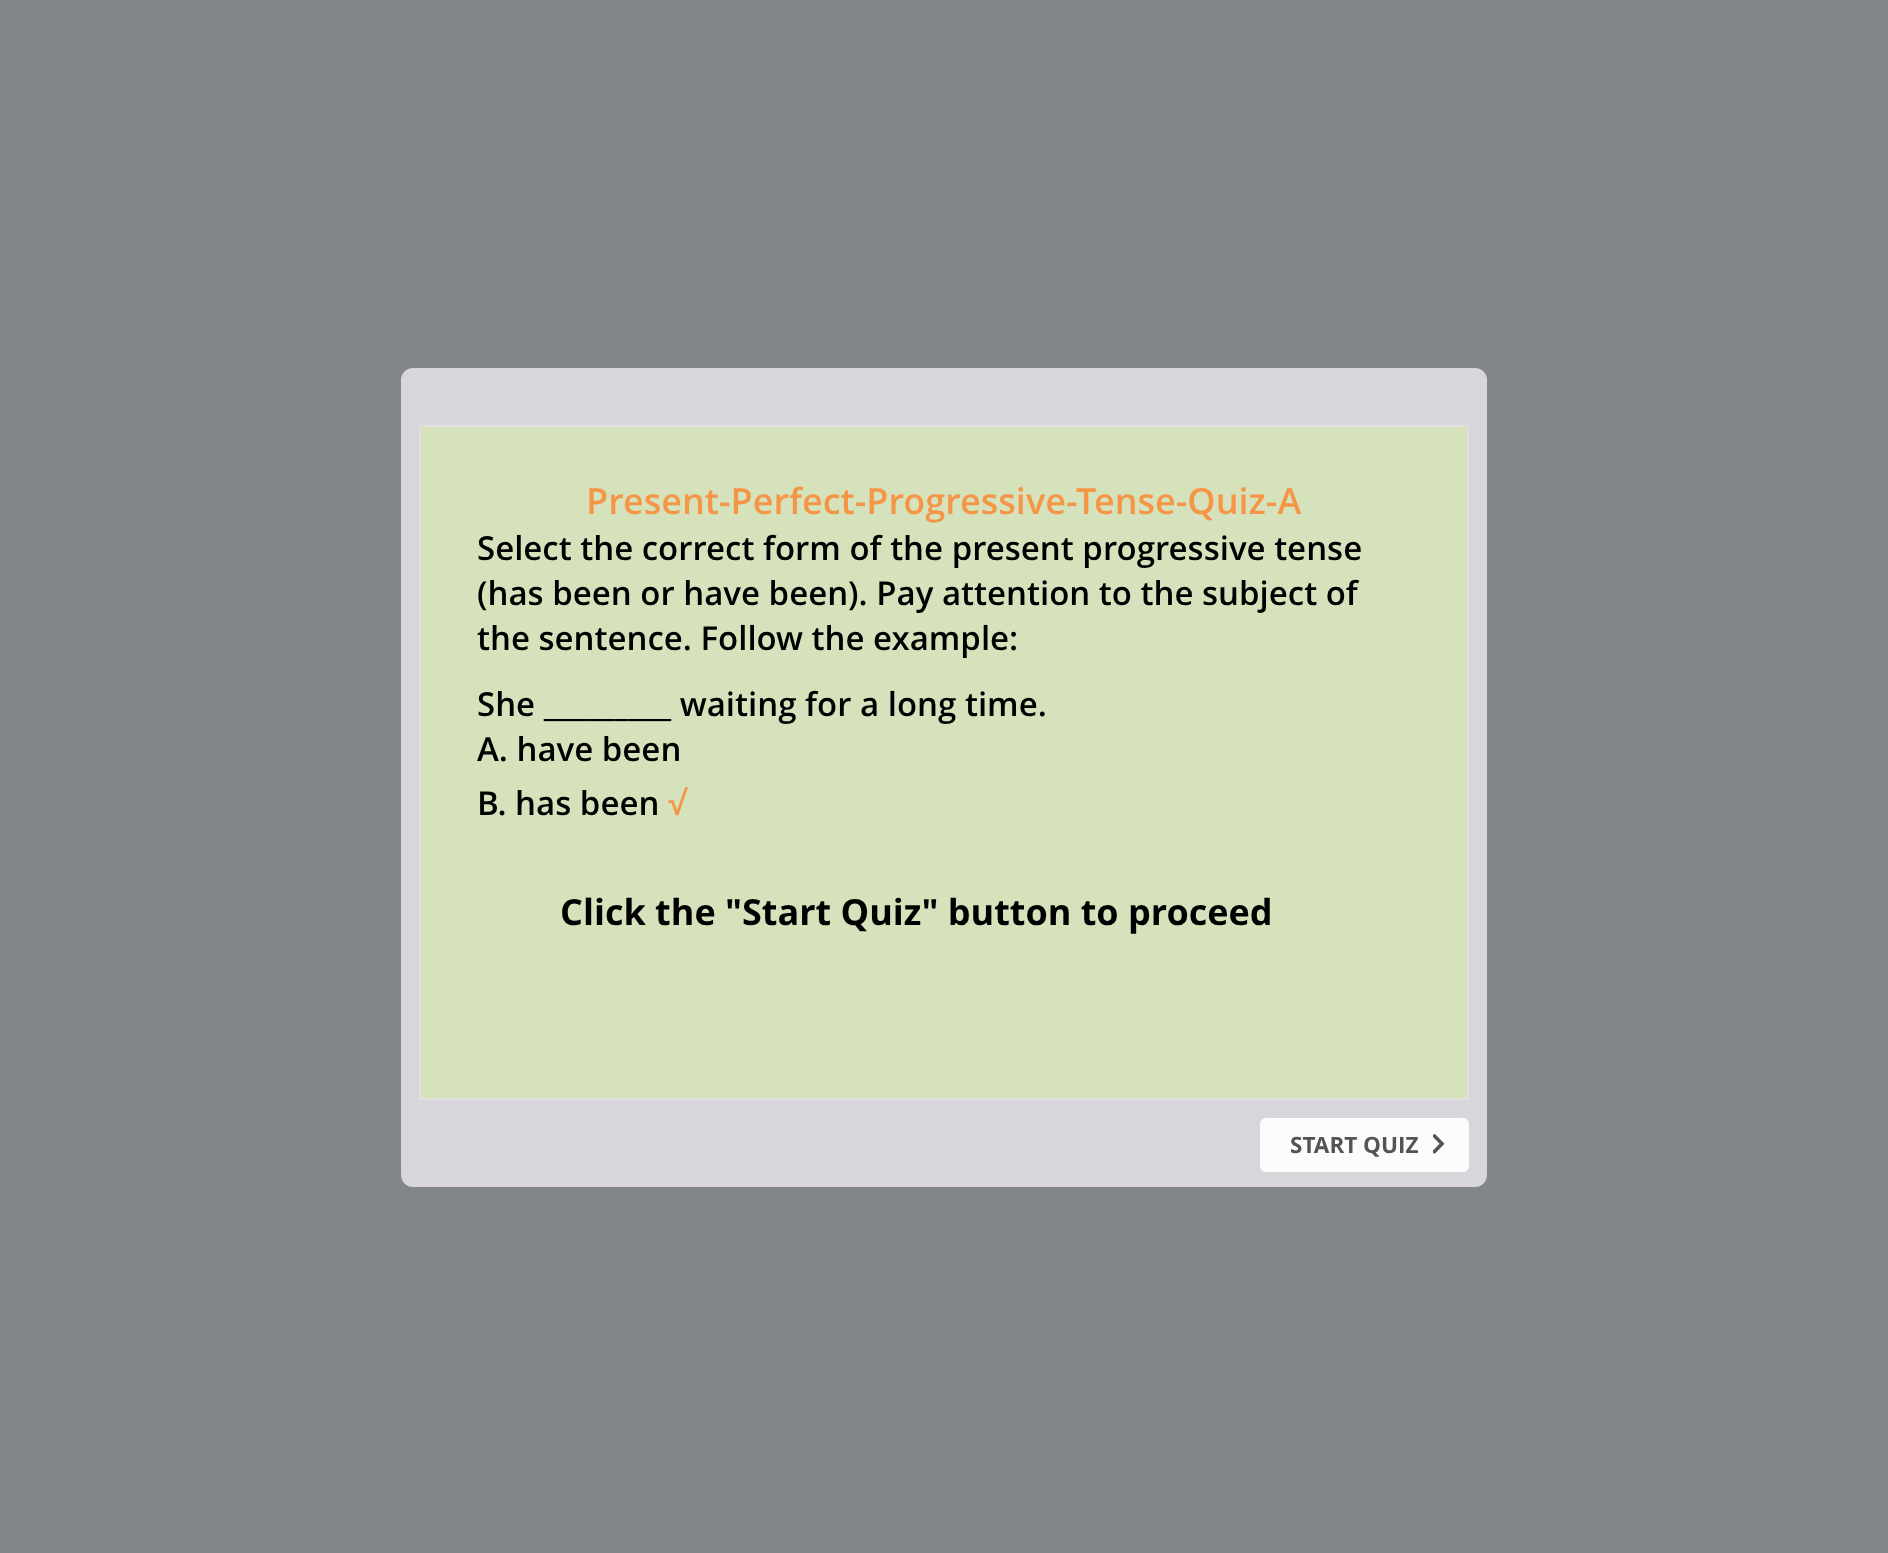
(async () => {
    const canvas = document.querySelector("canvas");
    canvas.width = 1888;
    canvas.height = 1553;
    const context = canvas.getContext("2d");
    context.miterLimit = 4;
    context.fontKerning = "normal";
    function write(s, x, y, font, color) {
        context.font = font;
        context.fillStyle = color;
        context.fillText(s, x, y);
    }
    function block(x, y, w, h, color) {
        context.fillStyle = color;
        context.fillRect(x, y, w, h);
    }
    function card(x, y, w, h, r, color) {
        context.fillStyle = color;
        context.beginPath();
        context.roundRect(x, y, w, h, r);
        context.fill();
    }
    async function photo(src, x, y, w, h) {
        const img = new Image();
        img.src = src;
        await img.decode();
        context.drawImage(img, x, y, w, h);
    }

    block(0, 0, 1888, 1553, "rgb(131, 134, 137)");
    card(401, 368, 1086, 819, 12, "rgb(216, 214, 219)");
    block(421, 427, 1046, 671, "rgb(213, 226, 188)");
    context.strokeStyle = "rgb(224, 224, 224)";
    context.lineWidth = 2;
    context.strokeRect(420, 426, 1048, 673);
    write("Present-Perfect-Progressive-Tense-Quiz-A", 586, 514, "600 36px Open Sans", "rgb(245, 150, 70)");
    write("Select the correct form of the present progressive tense", 477, 560, "600 33px 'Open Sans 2'", "rgb(0, 0, 0)");
    write("(has been or have been). Pay attention to the subject of", 477, 605, "600 33px 'Open Sans 2'", "rgb(0, 0, 0)");
    write("the sentence. Follow the example:", 477, 650, "600 33px 'Open Sans 2'", "rgb(0, 0, 0)");
    write("She _________ waiting for a long time.", 477, 716, "600 33px 'Open Sans 2'", "rgb(0, 0, 0)");
    write("A. have been", 477, 761, "600 33px 'Open Sans 2'", "rgb(0, 0, 0)");
    write("B. has been", 477, 815, "600 33px 'Open Sans 2'", "rgb(0, 0, 0)");
    write("√", 668, 815, "600 33px Open Sans", "rgb(245, 150, 70)");
    write("Click the \"Start Quiz\" button to proceed", 560, 925, "bold 36px 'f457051'", "rgb(0, 0, 0)");
    card(1260, 1118, 209, 54, 6, "rgb(252, 252, 252)");
    write("START QUIZ", 1290, 1153, "bold 22.5px 'f457051'", "rgb(84, 83, 86)");
    await photo("media/1.png", 1433, 1134, 12, 20);
})();
